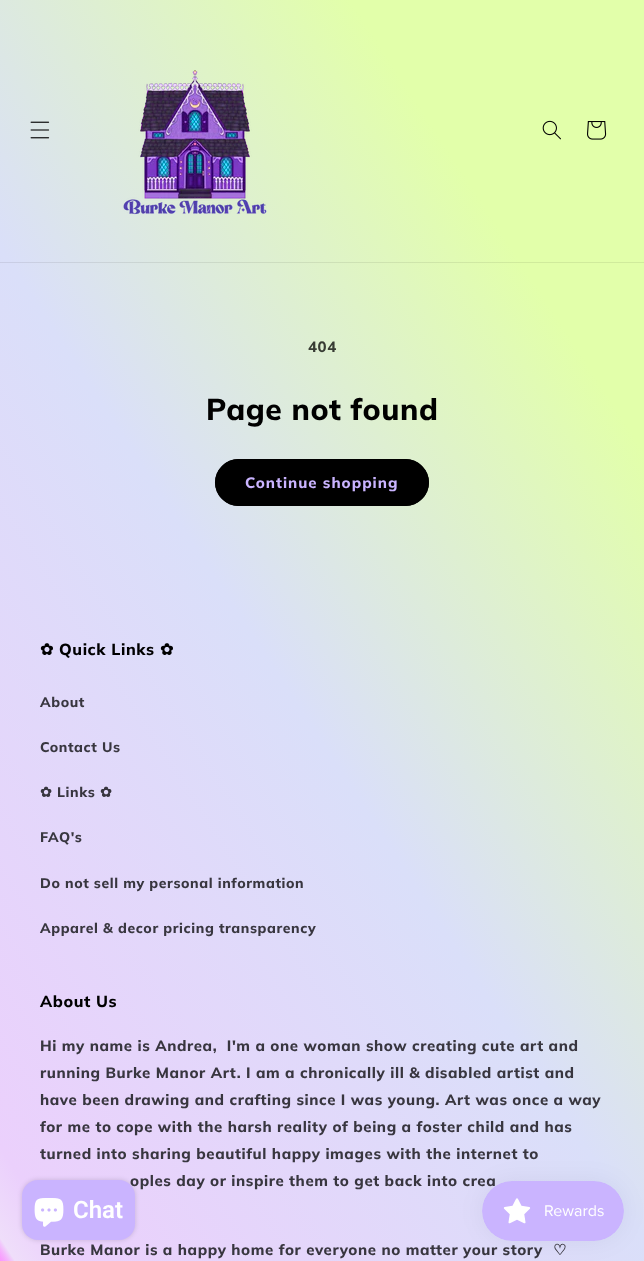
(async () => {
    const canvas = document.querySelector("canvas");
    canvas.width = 644;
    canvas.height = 1261;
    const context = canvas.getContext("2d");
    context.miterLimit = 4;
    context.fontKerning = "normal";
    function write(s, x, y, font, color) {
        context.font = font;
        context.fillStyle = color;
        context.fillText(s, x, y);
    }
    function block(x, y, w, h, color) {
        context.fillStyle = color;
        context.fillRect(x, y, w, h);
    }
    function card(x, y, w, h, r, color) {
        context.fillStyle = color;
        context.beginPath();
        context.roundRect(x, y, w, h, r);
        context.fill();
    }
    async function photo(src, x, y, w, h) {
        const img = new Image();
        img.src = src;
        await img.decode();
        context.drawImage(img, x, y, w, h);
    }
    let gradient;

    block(0, 0, 644, 1261, "rgb(255, 255, 255)");
    gradient = context.createLinearGradient(-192, 965, 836, 296);
    gradient.addColorStop(0, "rgb(252, 187, 255)");
    gradient.addColorStop(0.01, "rgb(239, 222, 250)");
    gradient.addColorStop(0.05, "rgb(235, 208, 252)");
    gradient.addColorStop(0.45, "rgb(218, 223, 249)");
    gradient.addColorStop(0.8, "rgb(226, 255, 170)");
    context.fillStyle = gradient;
    context.fillRect(0, 0, 644, 1261);
    gradient = context.createLinearGradient(-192, 965, 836, 296);
    gradient.addColorStop(0, "rgb(232, 172, 235)");
    gradient.addColorStop(0.01, "rgb(220, 204, 230)");
    gradient.addColorStop(0.05, "rgb(216, 191, 232)");
    gradient.addColorStop(0.45, "rgb(201, 205, 229)");
    gradient.addColorStop(0.8, "rgb(208, 235, 156)");
    context.fillStyle = gradient;
    context.fillRect(0, 262, 644, 1);
    await photo("media/1.png", 30, 121, 20, 18);
    await photo("media/2.png", 123, 70, 144, 145);
    await photo("media/3.png", 542, 120, 19, 20);
    await photo("media/4.png", 587, 121, 20, 19);
    context.letterSpacing = "0.6px";
    write("404", 308, 352, "800 15px Muli", "rgb(56, 60, 52)");
    write("Page not found", 206, 420, "800 30px Muli", "rgb(0, 0, 0)");
    card(215, 459, 214, 47, 23.5, "rgb(0, 0, 0)");
    context.beginPath();
    context.roundRect(215.5, 459.5, 213, 46, 23);
    context.strokeStyle = "rgb(0, 0, 0)";
    context.stroke();
    context.letterSpacing = "1px";
    write("Continue shopping", 245, 488, "800 15px Muli", "rgb(202, 180, 255)");
    gradient = context.createLinearGradient(-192, 965, 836, 296);
    gradient.addColorStop(0, "rgba(249, 119, 255, 0.5)");
    gradient.addColorStop(0.01, "rgb(239, 222, 250)");
    gradient.addColorStop(0.05, "rgb(235, 208, 252)");
    gradient.addColorStop(0.45, "rgb(218, 223, 249)");
    gradient.addColorStop(0.8, "rgb(226, 255, 170)");
    context.fillStyle = gradient;
    context.fillRect(0, 1239, 14, 22);
    context.letterSpacing = "0.6px";
    write("✿", 40, 655, "bold 16px DejaVu Sans", "rgb(0, 0, 0)");
    write("Quick Links", 59, 655, "800 16px Muli", "rgb(0, 0, 0)");
    write("✿", 160, 655, "bold 16px DejaVu Sans", "rgb(0, 0, 0)");
    write("About", 40, 707, "800 14px Muli", "rgb(56, 54, 63)");
    write("Contact Us", 40, 752, "800 14px Muli", "rgb(56, 54, 63)");
    write("✿", 40, 797, "bold 14px DejaVu Sans", "rgb(56, 54, 63)");
    write("Links", 57, 797, "800 14px Muli", "rgb(56, 54, 63)");
    write("✿", 100, 797, "bold 14px DejaVu Sans", "rgb(56, 54, 63)");
    write("FAQ's", 40, 842, "800 14px Muli", "rgb(56, 54, 63)");
    write("Do not sell my personal information", 40, 888, "800 14px Muli", "rgb(56, 54, 63)");
    write("Apparel & decor pricing transparency", 40, 933, "800 14px Muli", "rgb(56, 54, 63)");
    write("About Us", 40, 1007, "800 16px Muli", "rgb(0, 0, 0)");
    write("Hi my name is Andrea,  I'm a one woman show creating cute art and", 40, 1051, "800 15px Muli", "rgb(56, 54, 63)");
    write("running Burke Manor Art. I am a chronically ill & disabled artist and", 40, 1078, "800 15px Muli", "rgb(56, 54, 63)");
    write("have been drawing and crafting since I was young. Art was once a way", 40, 1105, "800 15px Muli", "rgb(56, 54, 63)");
    write("for me to cope with the harsh reality of being a foster child and has", 40, 1132, "800 15px Muli", "rgb(56, 54, 63)");
    write("turned into sharing beautiful happy images with the internet to", 40, 1159, "800 15px Muli", "rgb(56, 54, 63)");
    write("oples day or inspire them to get back into crea", 130, 1186, "800 15px Muli", "rgb(56, 54, 63)");
    write("Burke Manor is a happy home for everyone no matter your story", 40, 1255, "800 15px Muli", "rgb(56, 54, 63)");
    write("♡", 553, 1255, "bold 15px DejaVu Sans", "rgb(56, 54, 63)");
    context.fillStyle = "rgba(0, 0, 0, 0.15)";
    context.filter = "blur(2.5px)";
    context.beginPath();
    context.roundRect(22, 1180, 113, 60, 16);
    context.fill();
    context.filter = "none";
    card(22, 1180, 113, 60, 16, "rgb(202, 180, 255)");
    await photo("media/5.png", 34, 1198, 30, 29);
    context.letterSpacing = "0px";
    write("Chat", 73, 1218, "600 24px Roboto", "rgb(255, 255, 255)");
    context.fillStyle = "rgba(0, 0, 0, 0.05)";
    context.filter = "blur(12.5px)";
    context.beginPath();
    context.roundRect(482, 1181, 142, 60, 30);
    context.fill();
    context.filter = "none";
    await photo("media/6.png", 482, 1181, 142, 60);
})();
